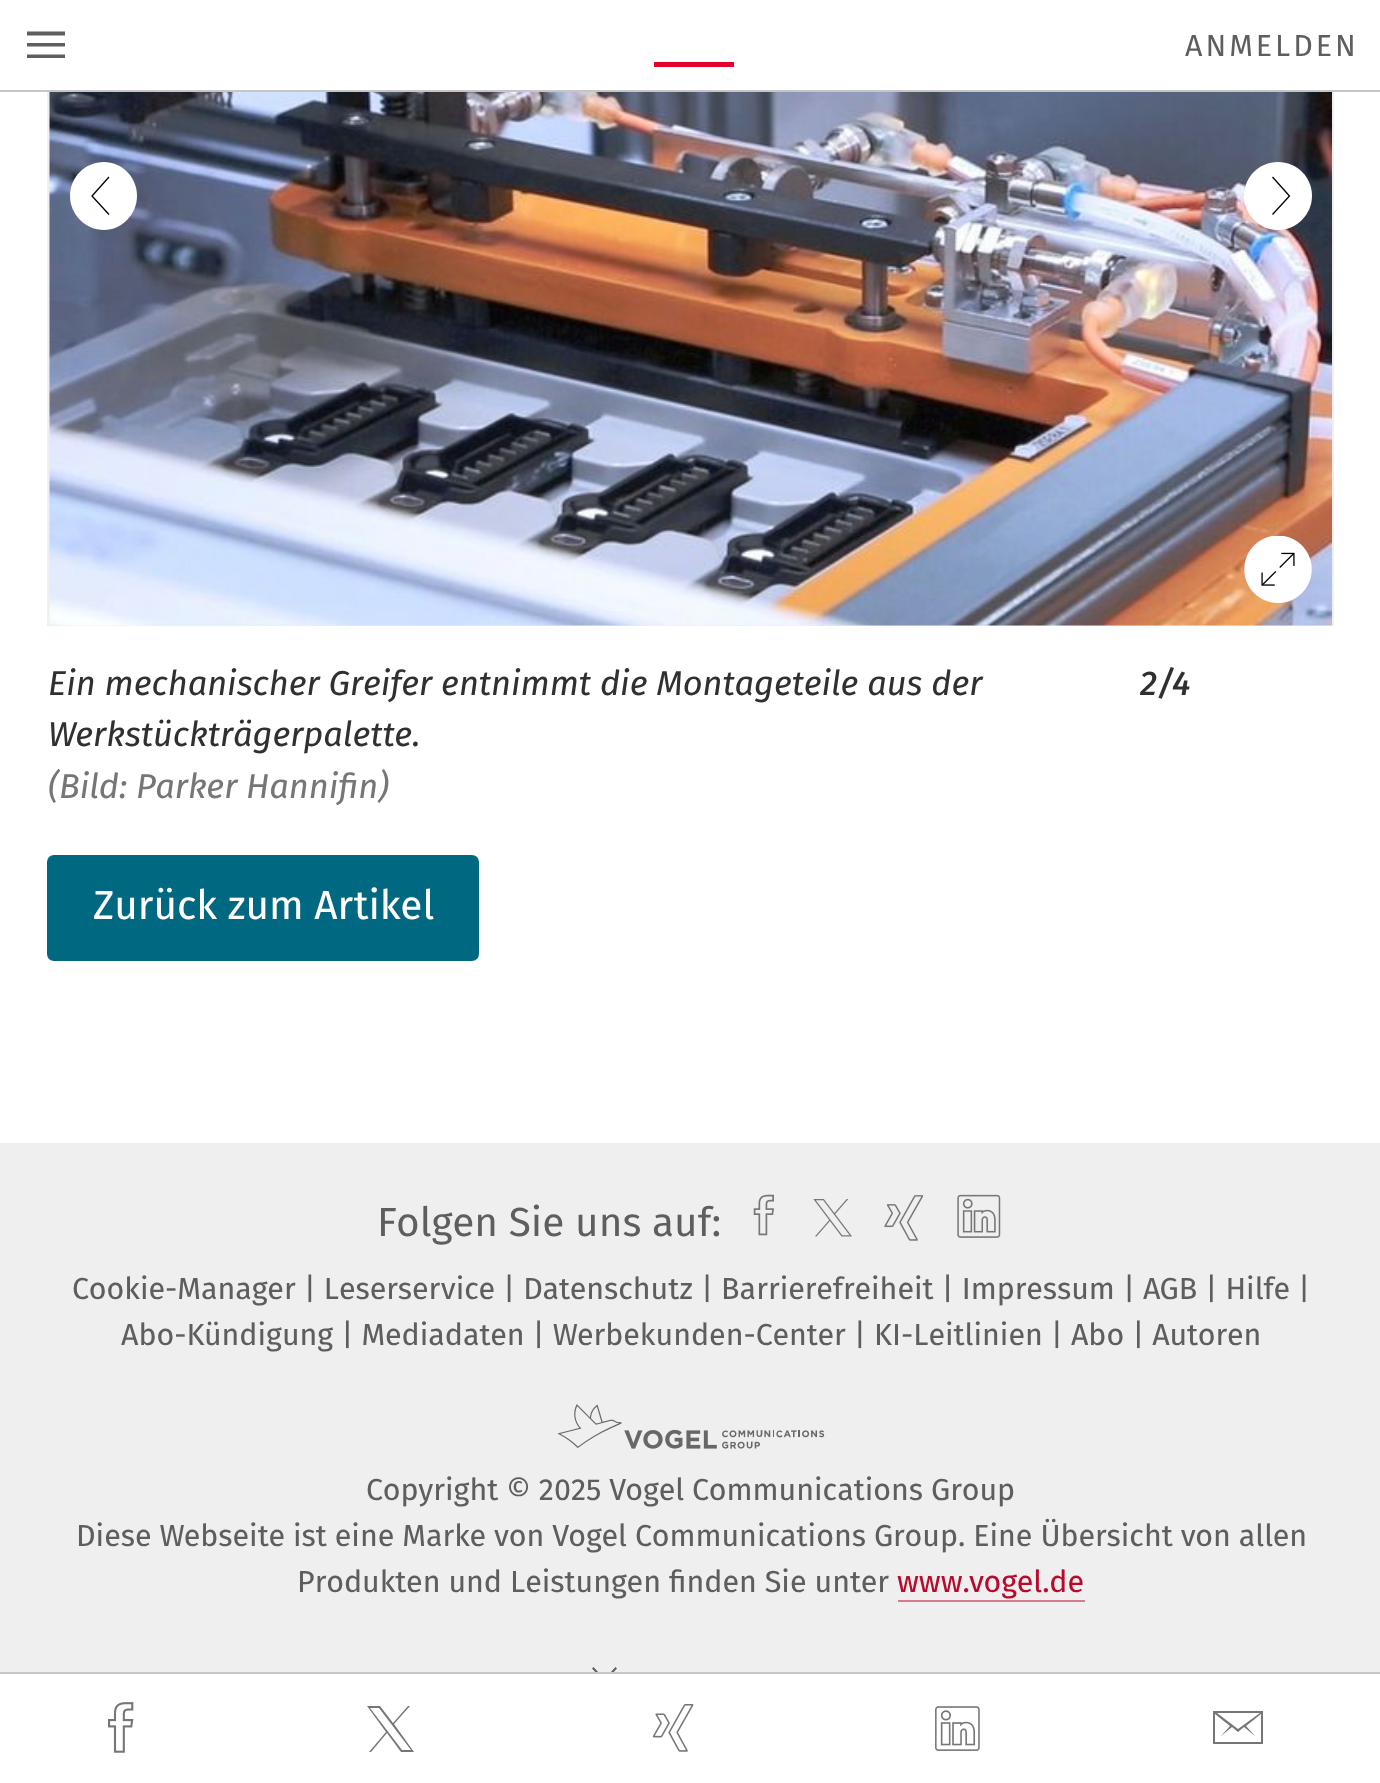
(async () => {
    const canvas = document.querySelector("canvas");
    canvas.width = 1380;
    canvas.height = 1783;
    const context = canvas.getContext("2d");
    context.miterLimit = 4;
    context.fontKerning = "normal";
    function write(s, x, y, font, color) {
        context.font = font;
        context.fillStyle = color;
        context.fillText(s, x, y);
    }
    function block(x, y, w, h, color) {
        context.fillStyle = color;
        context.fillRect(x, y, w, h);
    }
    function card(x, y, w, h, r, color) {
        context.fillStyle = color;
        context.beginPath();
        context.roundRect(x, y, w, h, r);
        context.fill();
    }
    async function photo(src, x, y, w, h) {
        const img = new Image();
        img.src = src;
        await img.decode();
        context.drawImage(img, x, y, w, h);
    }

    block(0, 0, 1380, 1783, "rgb(255, 255, 255)");
    block(0, 90, 1380, 2, "rgb(198, 198, 198)");
    context.fillStyle = "rgb(94, 94, 94)";
    context.beginPath();
    context.moveTo(27, 46.5);
    context.lineTo(27, 43);
    context.lineTo(65, 43);
    context.lineTo(65, 46.5);
    context.closePath();
    context.moveTo(27, 35.5);
    context.lineTo(27, 31.5);
    context.lineTo(65, 31.5);
    context.lineTo(65, 35.5);
    context.closePath();
    context.moveTo(27, 58);
    context.lineTo(27, 54.5);
    context.lineTo(65, 54.5);
    context.lineTo(65, 58);
    context.closePath();
    context.fill();
    context.letterSpacing = "3px";
    write("ANMELDEN", 1185, 56, "30.4px 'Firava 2'", "rgb(94, 94, 94)");
    block(654, 62, 80, 5, "rgb(227, 3, 46)");
    block(47, 92, 1287, 534, "rgb(239, 239, 239)");
    await photo("media/1.png", 49, 92, 1283, 534);
    context.fillStyle = "rgb(255, 255, 255)";
    context.beginPath();
    context.moveTo(104, 230);
    context.bezierCurveTo(122, 230, 137, 214, 137, 196);
    context.bezierCurveTo(137, 177, 122, 162, 104, 162);
    context.bezierCurveTo(85, 162, 70, 177, 70, 196);
    context.bezierCurveTo(70, 214, 85, 230, 104, 230);
    context.fill();
    context.beginPath();
    context.moveTo(109, 177);
    context.lineTo(92, 196);
    context.lineTo(109, 214.5);
    context.strokeStyle = "rgb(0, 0, 0)";
    context.lineWidth = 1.3;
    context.stroke();
    context.beginPath();
    context.moveTo(1278, 162);
    context.bezierCurveTo(1259, 162, 1244, 177, 1244, 196);
    context.bezierCurveTo(1244, 214, 1259, 230, 1278, 230);
    context.bezierCurveTo(1297, 230, 1312, 214, 1312, 196);
    context.bezierCurveTo(1312, 177, 1297, 162, 1278, 162);
    context.fill();
    context.beginPath();
    context.moveTo(1272.5, 214.5);
    context.lineTo(1289.5, 196);
    context.lineTo(1272.5, 177);
    context.stroke();
    await photo("media/2.png", 1244, 536, 68, 67);
    context.letterSpacing = "0px";
    write("Ein mechanischer Greifer entnimmt die Montageteile aus der", 48, 695, "italic 34.4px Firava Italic", "rgb(48, 48, 48)");
    write("Werkstückträgerpalette.", 48, 746, "italic 34.4px Firava Italic", "rgb(48, 48, 48)");
    write("(Bild: Parker Hannifin)", 48, 798, "italic 34.4px Firava Italic", "rgb(118, 118, 118)");
    write("2/4", 1140, 695, "italic 500 34.4px Firava Italic", "rgb(48, 48, 48)");
    card(47, 855, 432, 106, 7, "rgb(0, 104, 129)");
    write("Zurück zum Artikel", 93, 919, "40.5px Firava", "rgb(255, 255, 255)");
    block(0, 1143, 1380, 529, "rgb(239, 239, 239)");
    context.fillStyle = "rgb(94, 94, 94)";
    context.beginPath();
    context.moveTo(615.5, 1667);
    context.lineTo(617, 1668.5);
    context.lineTo(604.5, 1682);
    context.lineTo(592, 1668.5);
    context.lineTo(593.5, 1667);
    context.lineTo(604.5, 1679);
    context.closePath();
    context.fill();
    block(597, 1674, 15, 8, "rgb(255, 255, 255)");
    block(0, 1672, 1380, 2, "rgb(198, 198, 198)");
    await photo("media/3.png", 108, 1702, 26, 51);
    context.fillStyle = "rgb(118, 118, 118)";
    context.beginPath();
    context.moveTo(369, 1752);
    context.lineTo(371, 1752);
    context.lineTo(387, 1733);
    context.lineTo(401, 1752);
    context.lineTo(414, 1752);
    context.lineTo(394, 1724);
    context.lineTo(410, 1706);
    context.lineTo(408, 1706);
    context.lineTo(393, 1723);
    context.lineTo(380, 1706);
    context.lineTo(367, 1706);
    context.lineTo(386, 1732);
    context.closePath();
    context.moveTo(370, 1708);
    context.lineTo(379, 1708);
    context.lineTo(411, 1750);
    context.lineTo(402, 1750);
    context.closePath();
    context.fill();
    await photo("media/4.png", 652, 1704, 42, 48);
    await photo("media/5.png", 935, 1706, 45, 45);
    context.beginPath();
    context.moveTo(1213, 1711);
    context.lineTo(1263, 1711);
    context.lineTo(1263, 1744);
    context.lineTo(1213, 1744);
    context.closePath();
    context.moveTo(1238, 1729);
    context.lineTo(1260, 1713);
    context.lineTo(1217, 1713);
    context.closePath();
    context.moveTo(1215, 1742);
    context.lineTo(1261, 1742);
    context.lineTo(1261, 1714);
    context.lineTo(1246, 1726);
    context.lineTo(1255, 1736);
    context.lineTo(1244, 1727);
    context.lineTo(1238, 1732);
    context.lineTo(1232, 1727);
    context.lineTo(1221, 1736);
    context.lineTo(1230, 1726);
    context.lineTo(1215, 1714);
    context.closePath();
    context.fill();
    write("Folgen Sie uns auf:", 377, 1236, "40.5px 'Firava 2'", "rgb(94, 94, 94)");
    await photo("media/6.png", 753, 1194, 21, 42);
    await photo("media/7.png", 813, 1199, 39, 38);
    await photo("media/8.png", 884, 1195, 40, 46);
    await photo("media/9.png", 957, 1194, 44, 44);
    write("Cookie-Manager | Leserservice | Datenschutz | Barrierefreiheit | Impressum | AGB | Hilfe |", 72, 1299, "30.4px Firava", "rgb(94, 94, 94)");
    write("Abo-Kündigung | Mediadaten | Werbekunden-Center | KI-Leitlinien | Abo | Autoren", 121, 1345, "30.4px Firava", "rgb(94, 94, 94)");
    await photo("media/10.png", 557, 1404, 268, 45);
    write("Copyright © 2025 Vogel Communications Group", 366, 1500, "30.4px Firava", "rgb(94, 94, 94)");
    write("Diese Webseite ist eine Marke von Vogel Communications Group. Eine Übersicht von allen", 76, 1546, "30.4px Firava", "rgb(94, 94, 94)");
    write("Produkten und Leistungen finden Sie unter", 297, 1592, "30.4px Firava", "rgb(94, 94, 94)");
    write("www.vogel.de", 897, 1592, "30.4px Firava", "rgb(186, 10, 44)");
    block(898, 1600, 187, 2, "rgb(213, 125, 142)");
})();
